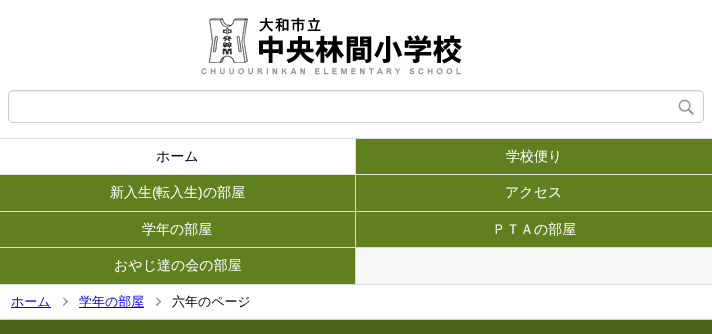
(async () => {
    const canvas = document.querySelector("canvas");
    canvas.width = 712;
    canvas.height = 334;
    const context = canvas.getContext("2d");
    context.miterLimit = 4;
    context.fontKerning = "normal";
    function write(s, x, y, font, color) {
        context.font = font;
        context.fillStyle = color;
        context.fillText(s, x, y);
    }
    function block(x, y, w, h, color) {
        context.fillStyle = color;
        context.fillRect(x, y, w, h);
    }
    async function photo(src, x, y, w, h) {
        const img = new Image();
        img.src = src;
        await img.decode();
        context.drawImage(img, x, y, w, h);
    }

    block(0, 0, 712, 334, "rgb(255, 255, 255)");
    await photo("media/1.png", 201, 17, 261, 58);
    context.fillStyle = "rgb(236, 236, 236)";
    context.beginPath();
    context.moveTo(13, 92);
    context.lineTo(699, 92);
    context.bezierCurveTo(701, 92, 703, 94, 703, 96);
    context.bezierCurveTo(703, 93, 702, 91, 699, 91);
    context.lineTo(13, 91);
    context.lineTo(10, 92);
    context.lineTo(9, 93);
    context.lineTo(9, 96);
    context.bezierCurveTo(9, 94, 11, 92, 13, 92);
    context.closePath();
    context.fill();
    context.beginPath();
    context.roundRect(8.5, 90.5, 695, 32, 4.5);
    context.strokeStyle = "rgb(204, 204, 204)";
    context.stroke();
    await photo("media/2.png", 678, 99, 16, 16);
    block(356, 248, 356, 36, "rgb(247, 247, 247)");
    block(0, 138, 712, 1, "rgb(221, 221, 221)");
    block(0, 284, 712, 1, "rgb(221, 221, 221)");
    block(355, 139, 1, 145, "rgb(221, 221, 221)");
    block(0, 174, 712, 1, "rgb(221, 221, 221)");
    write("ホーム", 156, 161, "500 14px WenQuanYi Zen Hei", "rgb(0, 0, 0)");
    block(356, 139, 356, 35, "rgb(96, 128, 32)");
    write("学校便り", 506, 161, "500 14px WenQuanYi Zen Hei", "rgb(255, 255, 255)");
    block(0, 211, 712, 1, "rgb(221, 221, 221)");
    block(0, 175, 355, 36, "rgb(96, 128, 32)");
    write("新入生", 110, 197, "500 14px WenQuanYi Zen Hei", "rgb(255, 255, 255)");
    write("(", 152, 197, "14px Liberation Sans", "rgb(255, 255, 255)");
    write("転入生", 156, 197, "500 14px WenQuanYi Zen Hei", "rgb(255, 255, 255)");
    write(")", 198, 197, "14px Liberation Sans", "rgb(255, 255, 255)");
    write("の部屋", 203, 197, "500 14px WenQuanYi Zen Hei", "rgb(255, 255, 255)");
    block(356, 175, 356, 36, "rgb(96, 128, 32)");
    write("アクセス", 505, 197, "500 14px WenQuanYi Zen Hei", "rgb(255, 255, 255)");
    block(0, 247, 712, 1, "rgb(221, 221, 221)");
    block(0, 212, 355, 35, "rgb(96, 128, 32)");
    write("学年の部屋", 142, 234, "500 14px WenQuanYi Zen Hei", "rgb(255, 255, 255)");
    block(356, 212, 356, 35, "rgb(96, 128, 32)");
    write("ＰＴＡの部屋", 492, 234, "500 14px WenQuanYi Zen Hei", "rgb(255, 255, 255)");
    block(0, 248, 355, 36, "rgb(96, 128, 32)");
    write("おやじ達の会の部屋", 114, 270, "500 14px WenQuanYi Zen Hei", "rgb(255, 255, 255)");
    block(0, 319, 712, 1, "rgb(204, 204, 204)");
    block(11, 307, 40, 1, "rgb(0, 0, 238)");
    write("ホーム", 11, 306, "500 13px WenQuanYi Zen Hei", "rgb(0, 0, 238)");
    context.fillStyle = "rgb(119, 119, 119)";
    context.beginPath();
    context.moveTo(63.5, 297.5);
    context.lineTo(68, 301.5);
    context.lineTo(67, 302.5);
    context.lineTo(63, 298);
    context.closePath();
    context.fill();
    context.beginPath();
    context.moveTo(67, 301);
    context.lineTo(68, 301.5);
    context.lineTo(63.5, 306);
    context.lineTo(63, 305);
    context.closePath();
    context.fill();
    block(79, 307, 65, 1, "rgb(0, 0, 238)");
    write("学年の部屋", 79, 306, "500 13px WenQuanYi Zen Hei", "rgb(0, 0, 238)");
    context.fillStyle = "rgb(119, 119, 119)";
    context.beginPath();
    context.moveTo(157, 297.5);
    context.lineTo(161, 301.5);
    context.lineTo(160.5, 302.5);
    context.lineTo(156, 298);
    context.closePath();
    context.fill();
    context.beginPath();
    context.moveTo(160.5, 301);
    context.lineTo(161, 301.5);
    context.lineTo(157, 306);
    context.lineTo(156, 305);
    context.closePath();
    context.fill();
    write("六年のページ", 172, 306, "500 13px WenQuanYi Zen Hei", "rgb(0, 0, 0)");
    block(0, 320, 712, 14, "rgb(77, 102, 26)");
})();
